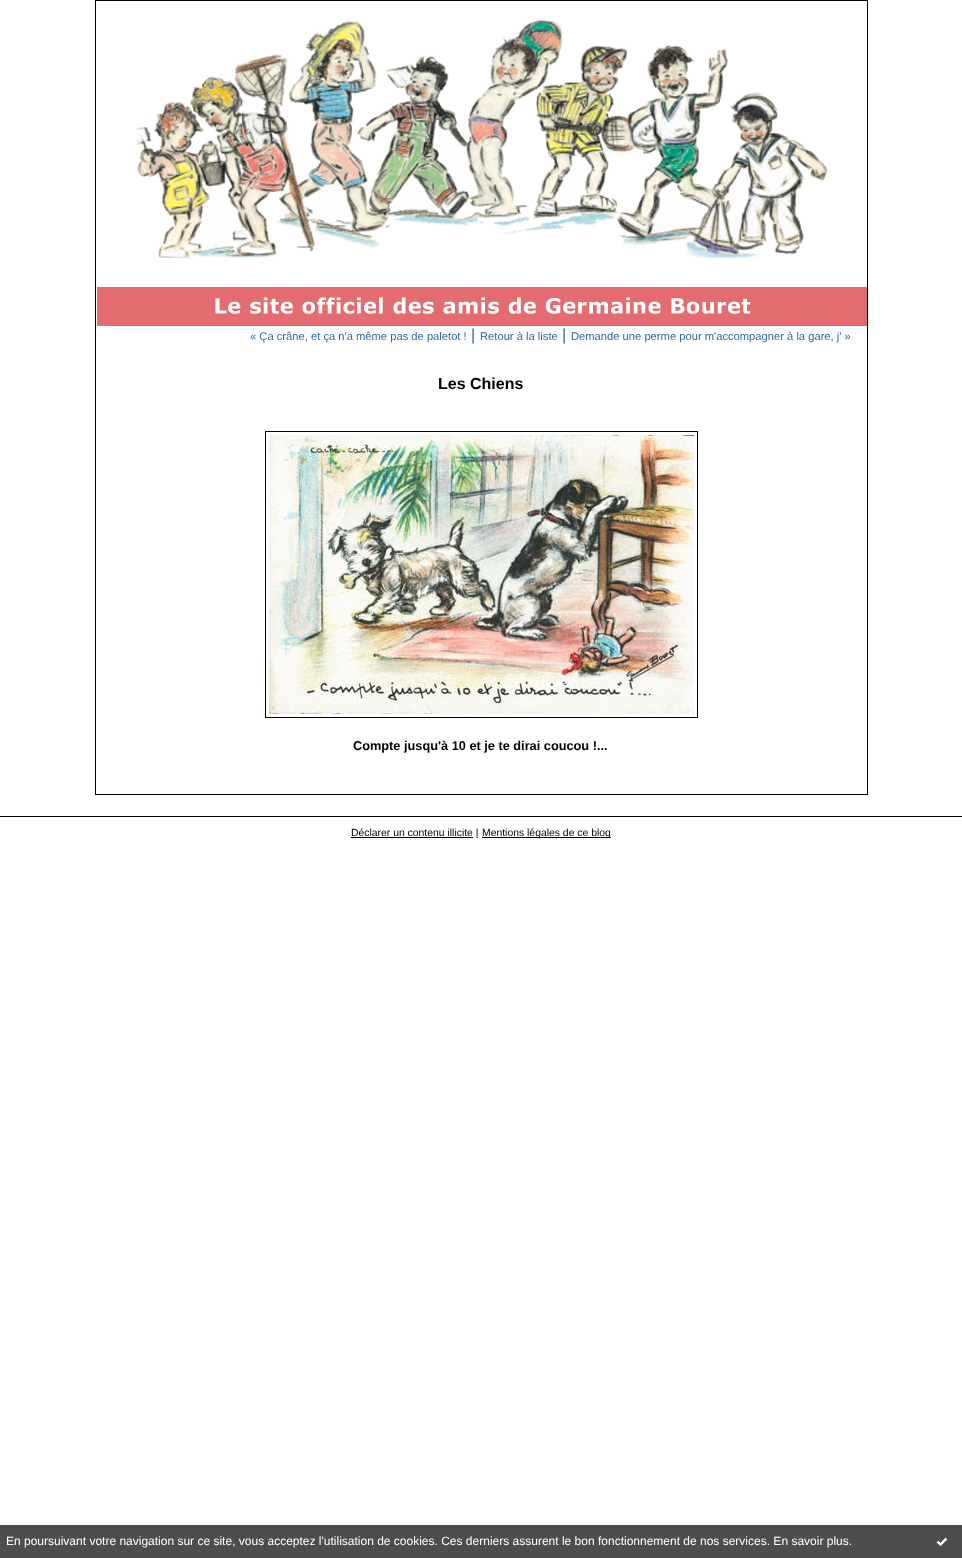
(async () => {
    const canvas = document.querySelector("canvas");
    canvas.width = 962;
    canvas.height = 1558;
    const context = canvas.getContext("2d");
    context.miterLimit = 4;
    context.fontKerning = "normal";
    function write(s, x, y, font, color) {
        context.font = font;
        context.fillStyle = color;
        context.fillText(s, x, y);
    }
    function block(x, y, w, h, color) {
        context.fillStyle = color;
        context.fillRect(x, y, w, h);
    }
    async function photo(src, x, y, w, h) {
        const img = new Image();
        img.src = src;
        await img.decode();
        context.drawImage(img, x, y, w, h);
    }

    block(0, 0, 962, 1558, "rgb(255, 255, 255)");
    context.strokeStyle = "rgb(0, 0, 0)";
    context.strokeRect(95.5, 0.5, 772, 794);
    await photo("media/1.png", 97, 19, 770, 307);
    write("« Ça crâne, et ça n'a même pas de paletot !", 250, 340, "11.2px Liberation Sans", "rgb(51, 102, 153)");
    write("|", 471, 340, "16px Liberation Sans", "rgb(51, 102, 153)");
    write("Retour à la liste", 480, 340, "11.2px Liberation Sans", "rgb(51, 102, 153)");
    write("|", 562, 340, "16px Liberation Sans", "rgb(51, 102, 153)");
    write("Demande une perme pour m'accompagner à la gare, j' »", 571, 340, "11.2px Liberation Sans", "rgb(51, 102, 153)");
    write("Les Chiens", 438, 389, "bold 16px Liberation Sans", "rgb(0, 0, 0)");
    context.strokeRect(265.5, 431.5, 432, 286);
    await photo("media/2.png", 269, 435, 425, 279);
    write("Compte jusqu'à 10 et je te dirai coucou !...", 353, 750, "bold 12.75px Liberation Sans", "rgb(0, 0, 0)");
    block(0, 816, 962, 1, "rgb(0, 0, 0)");
    block(351, 837, 122, 1, "rgb(0, 0, 0)");
    write("Déclarer un contenu illicite |", 351, 836, "10.4px Liberation Sans", "rgb(0, 0, 0)");
    block(482, 837, 129, 1, "rgb(0, 0, 0)");
    write("Mentions légales de ce blog", 482, 836, "10.4px Liberation Sans", "rgb(0, 0, 0)");
    block(0, 1525, 962, 33, "rgb(77, 77, 77)");
    write("En poursuivant votre navigation sur ce site, vous acceptez l'utilisation de cookies. Ces derniers assurent le bon fonctionnement de nos services. En savoir plus.", 6, 1545, "12px Liberation Sans", "rgb(255, 255, 255)");
    await photo("media/3.png", 936, 1537, 12, 9);
})();
